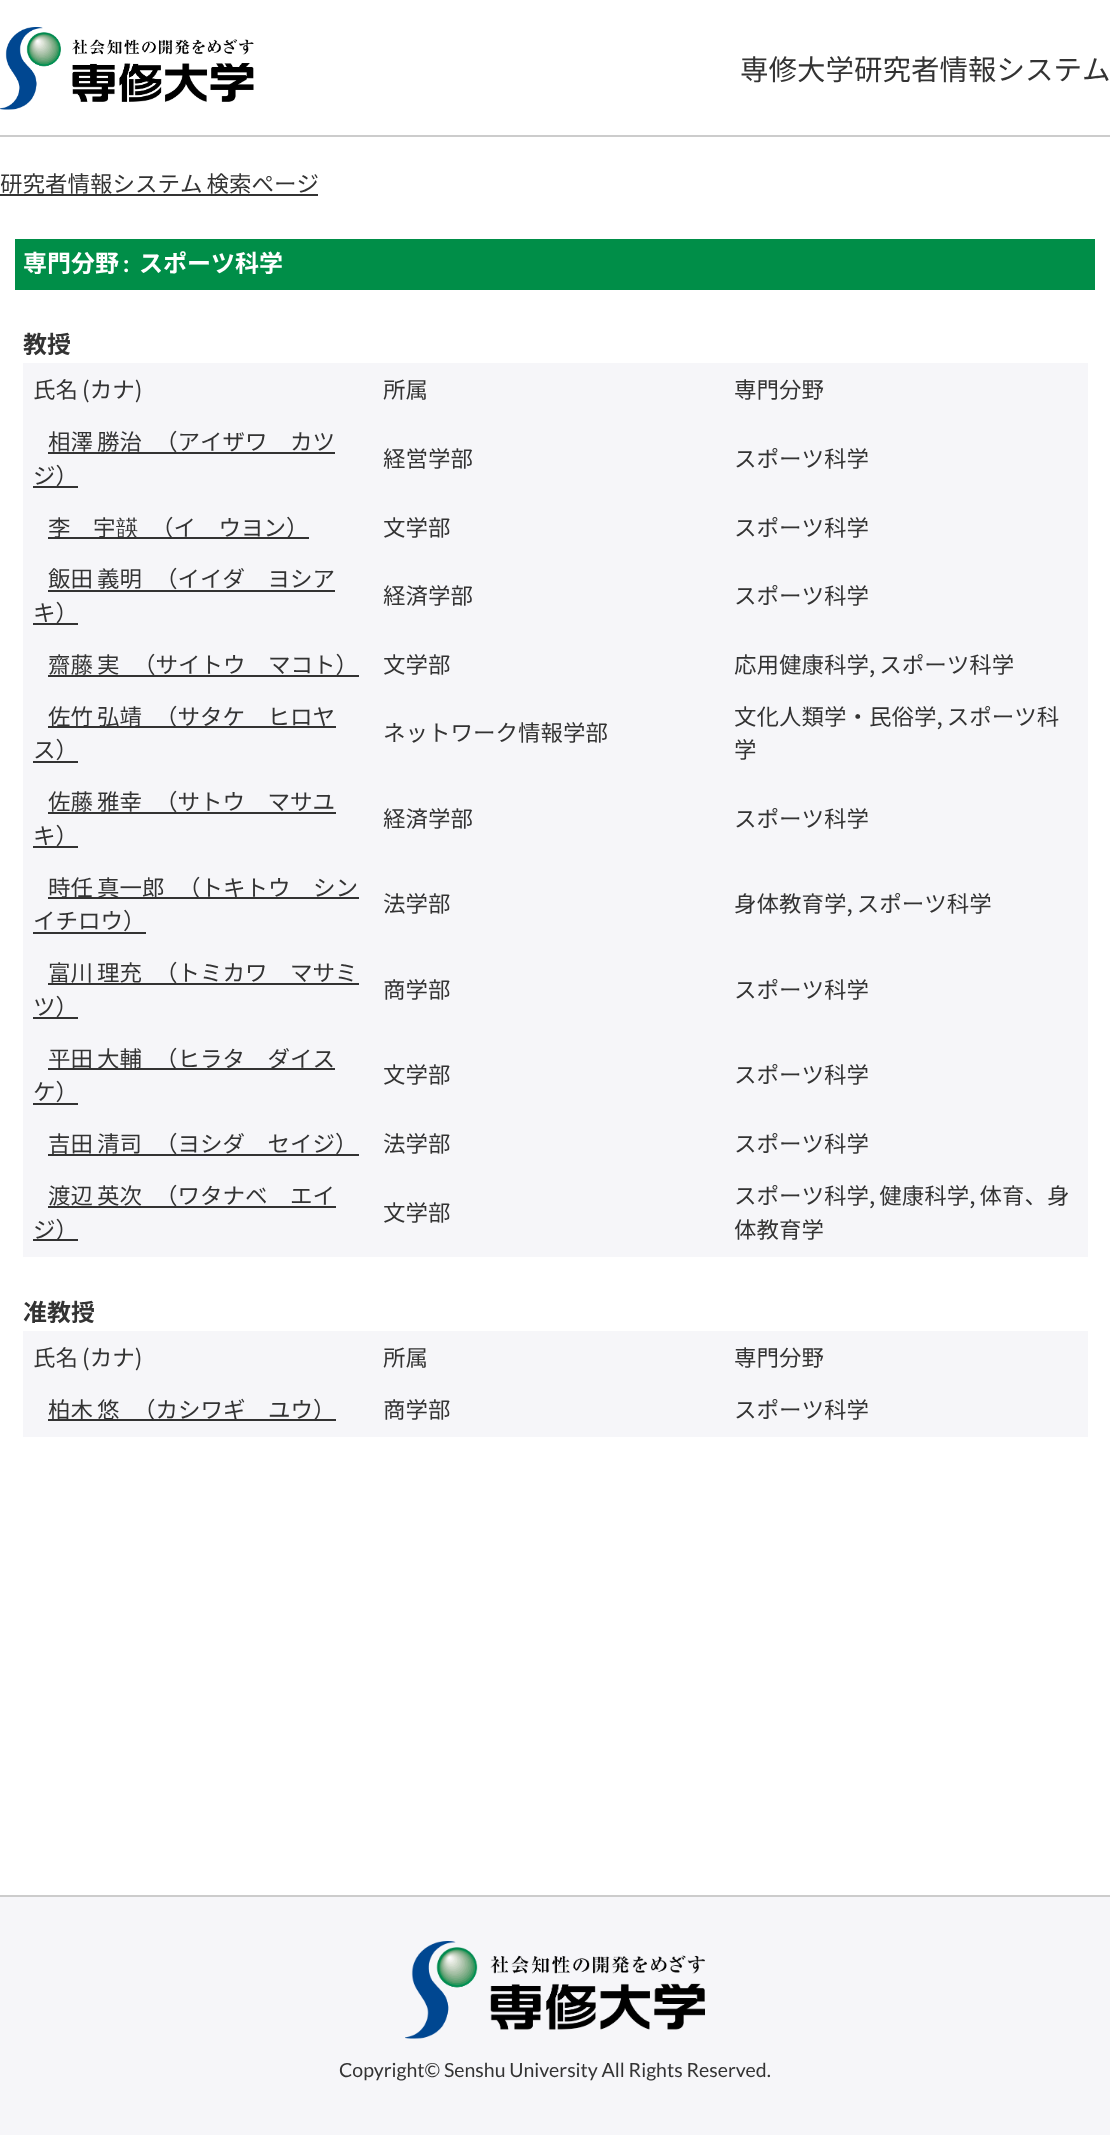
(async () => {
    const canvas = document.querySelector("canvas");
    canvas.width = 1110;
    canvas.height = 2135;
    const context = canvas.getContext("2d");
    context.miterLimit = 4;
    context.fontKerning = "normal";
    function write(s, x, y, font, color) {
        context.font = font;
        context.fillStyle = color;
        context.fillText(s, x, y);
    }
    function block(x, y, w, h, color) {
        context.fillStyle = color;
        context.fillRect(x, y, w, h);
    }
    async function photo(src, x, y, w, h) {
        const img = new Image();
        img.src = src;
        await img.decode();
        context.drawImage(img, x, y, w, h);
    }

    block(0, 0, 1110, 2135, "rgb(255, 255, 255)");
    block(0, 135, 1110, 2, "rgb(204, 204, 204)");
    await photo("media/1.png", 0, 27, 254, 83);
    write("専修大学研究者情報システム", 740, 80, "28.5px Noto Sans JP", "rgb(51, 51, 51)");
    context.wordSpacing = "-1px";
    write("研究者情報システム 検索ぺージ", 0, 192, "22.5px Noto Sans JP", "rgb(51, 51, 51)");
    block(0, 194, 318, 2, "rgb(51, 51, 51)");
    block(15, 239, 1080, 51, "rgb(0, 142, 72)");
    context.wordSpacing = "0px";
    write("専門分野", 23, 272, "bold 24px Noto Sans JP", "rgb(255, 255, 255)");
    write(":", 123, 272, "bold 24px Lato", "rgb(255, 255, 255)");
    write("スポーツ科学", 139, 272, "bold 24px Noto Sans JP", "rgb(255, 255, 255)");
    write("教授", 23, 353, "bold 24px Noto Sans JP", "rgb(51, 51, 51)");
    block(23, 363, 1065, 894, "rgb(246, 246, 249)");
    context.wordSpacing = "-1px";
    write("氏名 (カナ)", 33, 398, "22.5px Noto Sans JP", "rgb(51, 51, 51)");
    context.wordSpacing = "0px";
    write("所属", 383, 398, "22.5px Noto Sans JP", "rgb(51, 51, 51)");
    write("専門分野", 734, 398, "22.5px Noto Sans JP", "rgb(51, 51, 51)");
    context.wordSpacing = "-1px";
    write("相澤 勝治", 48, 450, "22.5px Noto Sans JP", "rgb(51, 51, 51)");
    block(48, 452, 287, 2, "rgb(51, 51, 51)");
    context.wordSpacing = "0px";
    write("（アイザワ　カツ", 155, 450, "22.5px Noto Sans JP", "rgb(51, 51, 51)");
    block(33, 486, 45, 2, "rgb(51, 51, 51)");
    write("ジ）", 33, 484, "22.5px Noto Sans JP", "rgb(51, 51, 51)");
    write("経営学部", 383, 467, "22.5px Noto Sans JP", "rgb(51, 51, 51)");
    write("スポーツ科学", 734, 467, "22.5px Noto Sans JP", "rgb(51, 51, 51)");
    block(48, 537, 261, 2, "rgb(51, 51, 51)");
    write("李　宇", 48, 536, "22.5px Noto Sans JP", "rgb(51, 51, 51)");
    write("韺", 116, 536, "500 22.5px WenQuanYi Zen Hei", "rgb(51, 51, 51)");
    write("（イ　ウヨン）", 151, 536, "22.5px Noto Sans JP", "rgb(51, 51, 51)");
    write("文学部", 383, 536, "22.5px Noto Sans JP", "rgb(51, 51, 51)");
    write("スポーツ科学", 734, 536, "22.5px Noto Sans JP", "rgb(51, 51, 51)");
    context.wordSpacing = "-1px";
    write("飯田 義明", 48, 587, "22.5px Noto Sans JP", "rgb(51, 51, 51)");
    block(48, 590, 287, 2, "rgb(51, 51, 51)");
    context.wordSpacing = "0px";
    write("（イイダ　ヨシア", 155, 587, "22.5px Noto Sans JP", "rgb(51, 51, 51)");
    block(33, 623, 45, 2, "rgb(51, 51, 51)");
    write("キ）", 33, 621, "22.5px Noto Sans JP", "rgb(51, 51, 51)");
    write("経済学部", 383, 604, "22.5px Noto Sans JP", "rgb(51, 51, 51)");
    write("スポーツ科学", 734, 604, "22.5px Noto Sans JP", "rgb(51, 51, 51)");
    context.wordSpacing = "-1px";
    write("齋藤 実", 48, 673, "22.5px Noto Sans JP", "rgb(51, 51, 51)");
    block(48, 675, 311, 2, "rgb(51, 51, 51)");
    context.wordSpacing = "0px";
    write("（サイトウ　マコト）", 133, 673, "22.5px Noto Sans JP", "rgb(51, 51, 51)");
    write("文学部", 383, 673, "22.5px Noto Sans JP", "rgb(51, 51, 51)");
    context.wordSpacing = "-1px";
    write("応用健康科学, スポーツ科学", 734, 673, "22.5px Noto Sans JP", "rgb(51, 51, 51)");
    block(48, 726, 288, 2, "rgb(51, 51, 51)");
    write("佐竹 弘靖", 48, 725, "22.5px Noto Sans JP", "rgb(51, 51, 51)");
    context.wordSpacing = "0px";
    write("（サタケ　ヒロヤ", 155, 725, "22.5px Noto Sans JP", "rgb(51, 51, 51)");
    write("ス）", 33, 758, "22.5px Noto Sans JP", "rgb(51, 51, 51)");
    block(33, 761, 45, 2, "rgb(51, 51, 51)");
    write("ネットワーク情報学部", 383, 741, "22.5px Noto Sans JP", "rgb(51, 51, 51)");
    context.wordSpacing = "-1px";
    write("文化人類学・民俗学, スポーツ科", 734, 725, "22.5px Noto Sans JP", "rgb(51, 51, 51)");
    context.wordSpacing = "0px";
    write("学", 734, 758, "22.5px Noto Sans JP", "rgb(51, 51, 51)");
    context.wordSpacing = "-1px";
    write("佐藤 雅幸", 48, 810, "22.5px Noto Sans JP", "rgb(51, 51, 51)");
    block(48, 812, 288, 2, "rgb(51, 51, 51)");
    context.wordSpacing = "0px";
    write("（サトウ　マサユ", 155, 810, "22.5px Noto Sans JP", "rgb(51, 51, 51)");
    block(33, 846, 45, 2, "rgb(51, 51, 51)");
    write("キ）", 33, 844, "22.5px Noto Sans JP", "rgb(51, 51, 51)");
    write("経済学部", 383, 827, "22.5px Noto Sans JP", "rgb(51, 51, 51)");
    write("スポーツ科学", 734, 827, "22.5px Noto Sans JP", "rgb(51, 51, 51)");
    block(48, 897, 311, 2, "rgb(51, 51, 51)");
    context.wordSpacing = "-1px";
    write("時任 真一郎", 48, 896, "22.5px Noto Sans JP", "rgb(51, 51, 51)");
    context.wordSpacing = "0px";
    write("（トキトウ　シン", 178, 896, "22.5px Noto Sans JP", "rgb(51, 51, 51)");
    write("イチロウ）", 33, 929, "22.5px Noto Sans JP", "rgb(51, 51, 51)");
    block(33, 932, 113, 2, "rgb(51, 51, 51)");
    write("法学部", 383, 912, "22.5px Noto Sans JP", "rgb(51, 51, 51)");
    context.wordSpacing = "-1px";
    write("身体教育学, スポーツ科学", 734, 912, "22.5px Noto Sans JP", "rgb(51, 51, 51)");
    write("富川 理充", 48, 981, "22.5px Noto Sans JP", "rgb(51, 51, 51)");
    block(48, 983, 311, 2, "rgb(51, 51, 51)");
    context.wordSpacing = "0px";
    write("（トミカワ　マサミ", 155, 981, "22.5px Noto Sans JP", "rgb(51, 51, 51)");
    block(33, 1017, 45, 2, "rgb(51, 51, 51)");
    write("ツ）", 33, 1015, "22.5px Noto Sans JP", "rgb(51, 51, 51)");
    write("商学部", 383, 998, "22.5px Noto Sans JP", "rgb(51, 51, 51)");
    write("スポーツ科学", 734, 998, "22.5px Noto Sans JP", "rgb(51, 51, 51)");
    block(48, 1068, 287, 2, "rgb(51, 51, 51)");
    context.wordSpacing = "-1px";
    write("平田 大輔", 48, 1067, "22.5px Noto Sans JP", "rgb(51, 51, 51)");
    context.wordSpacing = "0px";
    write("（ヒラタ　ダイス", 155, 1067, "22.5px Noto Sans JP", "rgb(51, 51, 51)");
    write("ケ）", 33, 1100, "22.5px Noto Sans JP", "rgb(51, 51, 51)");
    block(33, 1103, 45, 2, "rgb(51, 51, 51)");
    write("文学部", 383, 1083, "22.5px Noto Sans JP", "rgb(51, 51, 51)");
    write("スポーツ科学", 734, 1083, "22.5px Noto Sans JP", "rgb(51, 51, 51)");
    context.wordSpacing = "-1px";
    write("吉田 清司", 48, 1152, "22.5px Noto Sans JP", "rgb(51, 51, 51)");
    block(48, 1154, 311, 2, "rgb(51, 51, 51)");
    context.wordSpacing = "0px";
    write("（ヨシダ　セイジ）", 155, 1152, "22.5px Noto Sans JP", "rgb(51, 51, 51)");
    write("法学部", 383, 1152, "22.5px Noto Sans JP", "rgb(51, 51, 51)");
    write("スポーツ科学", 734, 1152, "22.5px Noto Sans JP", "rgb(51, 51, 51)");
    context.wordSpacing = "-1px";
    write("渡辺 英次", 48, 1204, "22.5px Noto Sans JP", "rgb(51, 51, 51)");
    block(48, 1206, 288, 2, "rgb(51, 51, 51)");
    context.wordSpacing = "0px";
    write("（ワタナベ　エイ", 155, 1204, "22.5px Noto Sans JP", "rgb(51, 51, 51)");
    block(33, 1239, 45, 2, "rgb(51, 51, 51)");
    write("ジ）", 33, 1238, "22.5px Noto Sans JP", "rgb(51, 51, 51)");
    write("文学部", 383, 1221, "22.5px Noto Sans JP", "rgb(51, 51, 51)");
    context.wordSpacing = "-1px";
    write("スポーツ科学, 健康科学, 体育、身", 734, 1204, "22.5px Noto Sans JP", "rgb(51, 51, 51)");
    context.wordSpacing = "0px";
    write("体教育学", 734, 1238, "22.5px Noto Sans JP", "rgb(51, 51, 51)");
    write("准教授", 23, 1321, "bold 24px Noto Sans JP", "rgb(51, 51, 51)");
    block(23, 1331, 1065, 106, "rgb(246, 246, 249)");
    context.wordSpacing = "-1px";
    write("氏名 (カナ)", 33, 1366, "22.5px Noto Sans JP", "rgb(51, 51, 51)");
    context.wordSpacing = "0px";
    write("所属", 383, 1366, "22.5px Noto Sans JP", "rgb(51, 51, 51)");
    write("専門分野", 734, 1366, "22.5px Noto Sans JP", "rgb(51, 51, 51)");
    block(48, 1419, 288, 2, "rgb(51, 51, 51)");
    context.wordSpacing = "-1px";
    write("柏木 悠", 48, 1418, "22.5px Noto Sans JP", "rgb(51, 51, 51)");
    context.wordSpacing = "0px";
    write("（カシワギ　ユウ）", 133, 1418, "22.5px Noto Sans JP", "rgb(51, 51, 51)");
    write("商学部", 383, 1418, "22.5px Noto Sans JP", "rgb(51, 51, 51)");
    write("スポーツ科学", 734, 1418, "22.5px Noto Sans JP", "rgb(51, 51, 51)");
    block(0, 1897, 1110, 238, "rgb(246, 246, 249)");
    block(0, 1895, 1110, 2, "rgb(204, 204, 204)");
    await photo("media/2.png", 405, 1941, 300, 98);
    write("Copyright© Senshu University All Rights Reserved.", 339, 2077, "19.5px Lato", "rgb(51, 51, 51)");
})();
